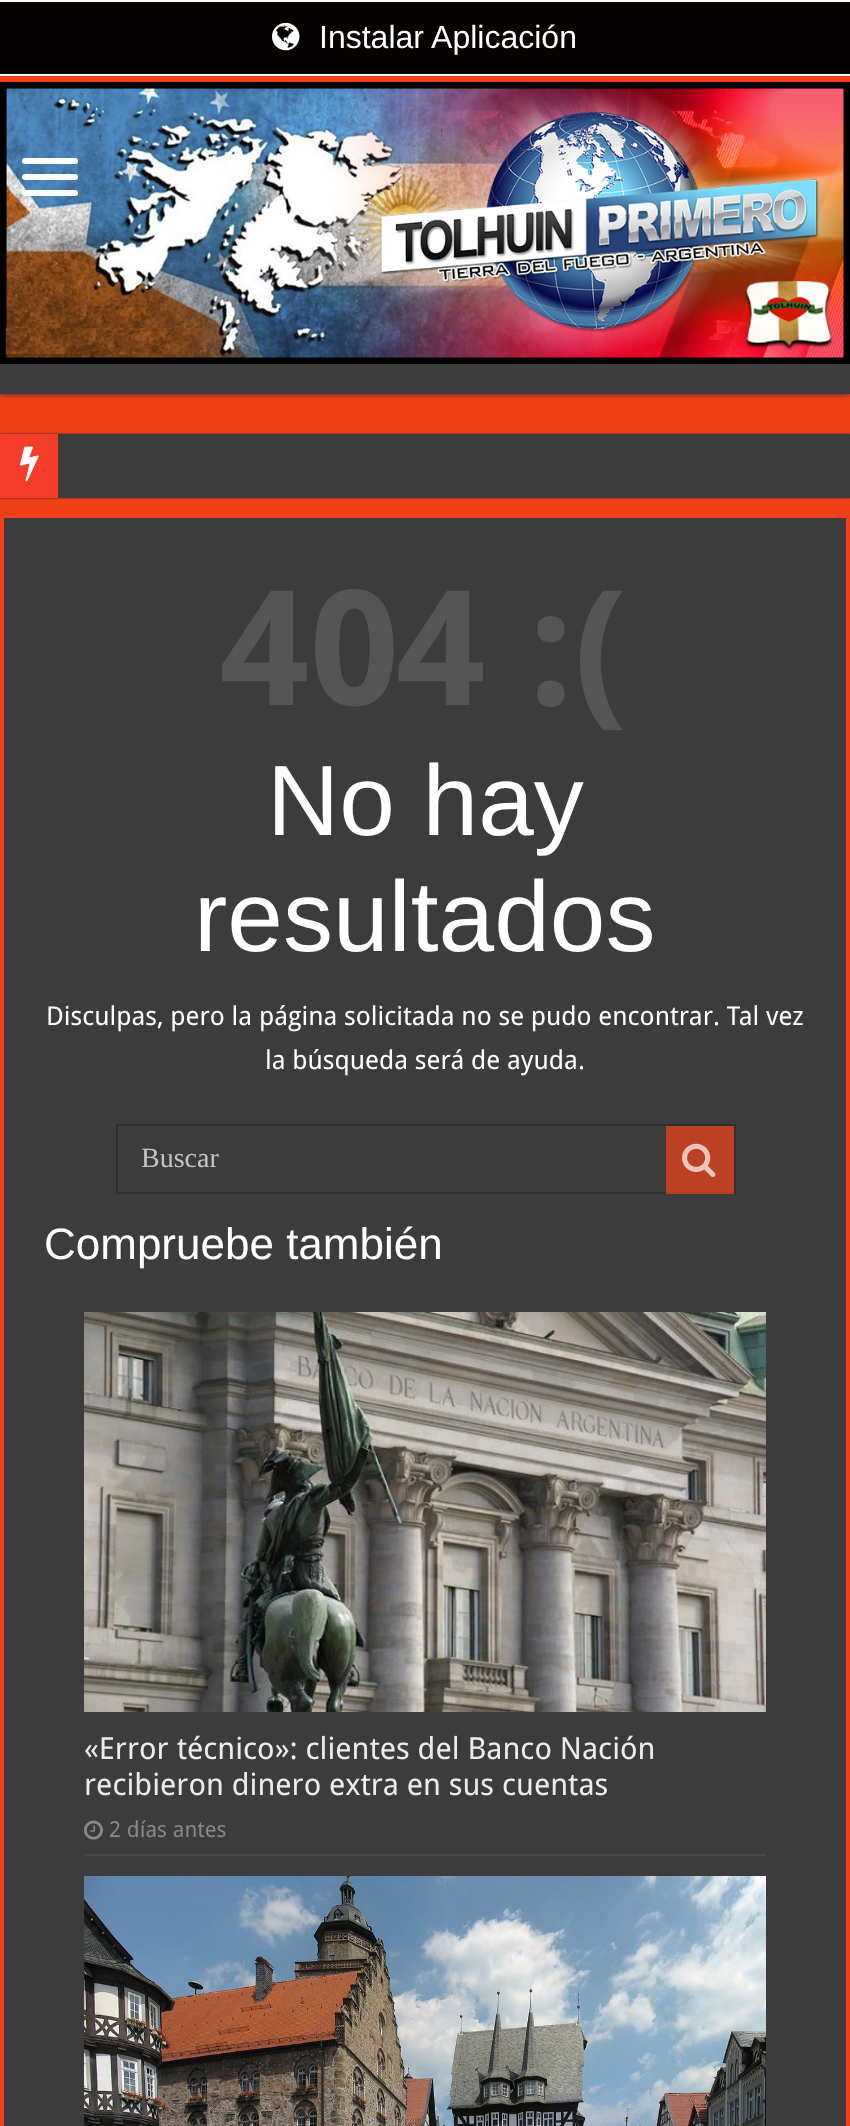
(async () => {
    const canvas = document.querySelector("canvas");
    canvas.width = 850;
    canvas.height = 2126;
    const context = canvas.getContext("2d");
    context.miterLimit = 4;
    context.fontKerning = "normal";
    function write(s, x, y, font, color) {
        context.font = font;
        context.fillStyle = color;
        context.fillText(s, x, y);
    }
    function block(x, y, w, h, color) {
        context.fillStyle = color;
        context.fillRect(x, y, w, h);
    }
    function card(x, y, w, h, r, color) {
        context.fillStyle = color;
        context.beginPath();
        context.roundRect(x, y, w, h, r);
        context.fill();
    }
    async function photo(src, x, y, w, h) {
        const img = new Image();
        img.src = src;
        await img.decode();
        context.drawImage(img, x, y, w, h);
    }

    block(0, 0, 850, 2126, "rgb(242, 65, 24)");
    context.fillStyle = "rgb(42, 42, 42)";
    context.filter = "blur(3px)";
    context.beginPath();
    context.rect(0, 76, 850, 318);
    context.fill();
    context.filter = "none";
    block(0, 2, 850, 72, "rgb(6, 2, 0)");
    block(0, 0, 850, 2, "rgb(255, 255, 255)");
    block(0, 74, 850, 2, "rgb(255, 255, 255)");
    await photo("media/1.png", 272, 22, 28, 29);
    write("Instalar Aplicación", 319, 48, "32px Liberation Sans", "rgb(255, 255, 255)");
    block(0, 364, 850, 30, "rgb(60, 60, 60)");
    block(0, 76, 850, 6, "rgb(242, 65, 24)");
    await photo("media/2.png", 0, 82, 850, 282);
    card(22, 158, 56, 6, 3, "rgb(255, 255, 255)");
    card(22, 174, 56, 6, 3, "rgb(255, 255, 255)");
    card(22, 190, 56, 6, 3, "rgb(255, 255, 255)");
    context.fillStyle = "rgb(42, 42, 42)";
    context.filter = "blur(1px)";
    context.beginPath();
    context.rect(0, 434, 850, 64);
    context.fill();
    context.filter = "none";
    block(58, 434, 792, 64, "rgb(60, 60, 60)");
    block(0, 434, 58, 64, "rgb(244, 61, 42)");
    await photo("media/3.png", 20, 446, 19, 36);
    block(4, 518, 842, 1608, "rgb(60, 60, 60)");
    write("404 :(", 222, 705, "bold 160px Droid Sans", "rgb(85, 85, 85)");
    write("No hay", 267, 835, "100px Liberation Sans", "rgb(255, 255, 255)");
    write("resultados", 194, 951, "100px Liberation Sans", "rgb(255, 255, 255)");
    write("Disculpas, pero la página solicitada no se pudo encontrar. Tal vez", 46, 1025, "26px Droid Sans", "rgb(255, 255, 255)");
    write("la búsqueda será de ayuda.", 265, 1069, "26px Droid Sans", "rgb(255, 255, 255)");
    context.strokeStyle = "rgb(47, 47, 47)";
    context.lineWidth = 2;
    context.strokeRect(117, 1125, 618, 68);
    context.save();
    context.beginPath();
    context.rect(142, 1144, 568, 32);
    context.clip();
    write("Buscar", 141, 1167, "28px Liberation Serif", "rgb(197, 197, 197)");
    context.restore();
    block(666, 1126, 68, 68, "rgba(242, 65, 24, 0.7)");
    await photo("media/4.png", 682, 1143, 34, 35);
    write("Compruebe también", 44, 1259, "44px Liberation Sans", "rgb(255, 255, 255)");
    await photo("media/5.png", 84, 1312, 682, 400);
    write("«Error técnico»: clientes del Banco Nación", 84, 1759, "30.4px Droid Sans", "rgb(236, 236, 236)");
    write("recibieron dinero extra en sus cuentas", 84, 1795, "30.4px Droid Sans", "rgb(236, 236, 236)");
    block(84, 1854, 682, 2, "rgb(71, 71, 71)");
    await photo("media/6.png", 84, 1820, 19, 20);
    write("2 días antes", 109, 1837, "22px Droid Sans", "rgb(136, 136, 136)");
    await photo("media/7.png", 84, 1876, 682, 250);
})();
